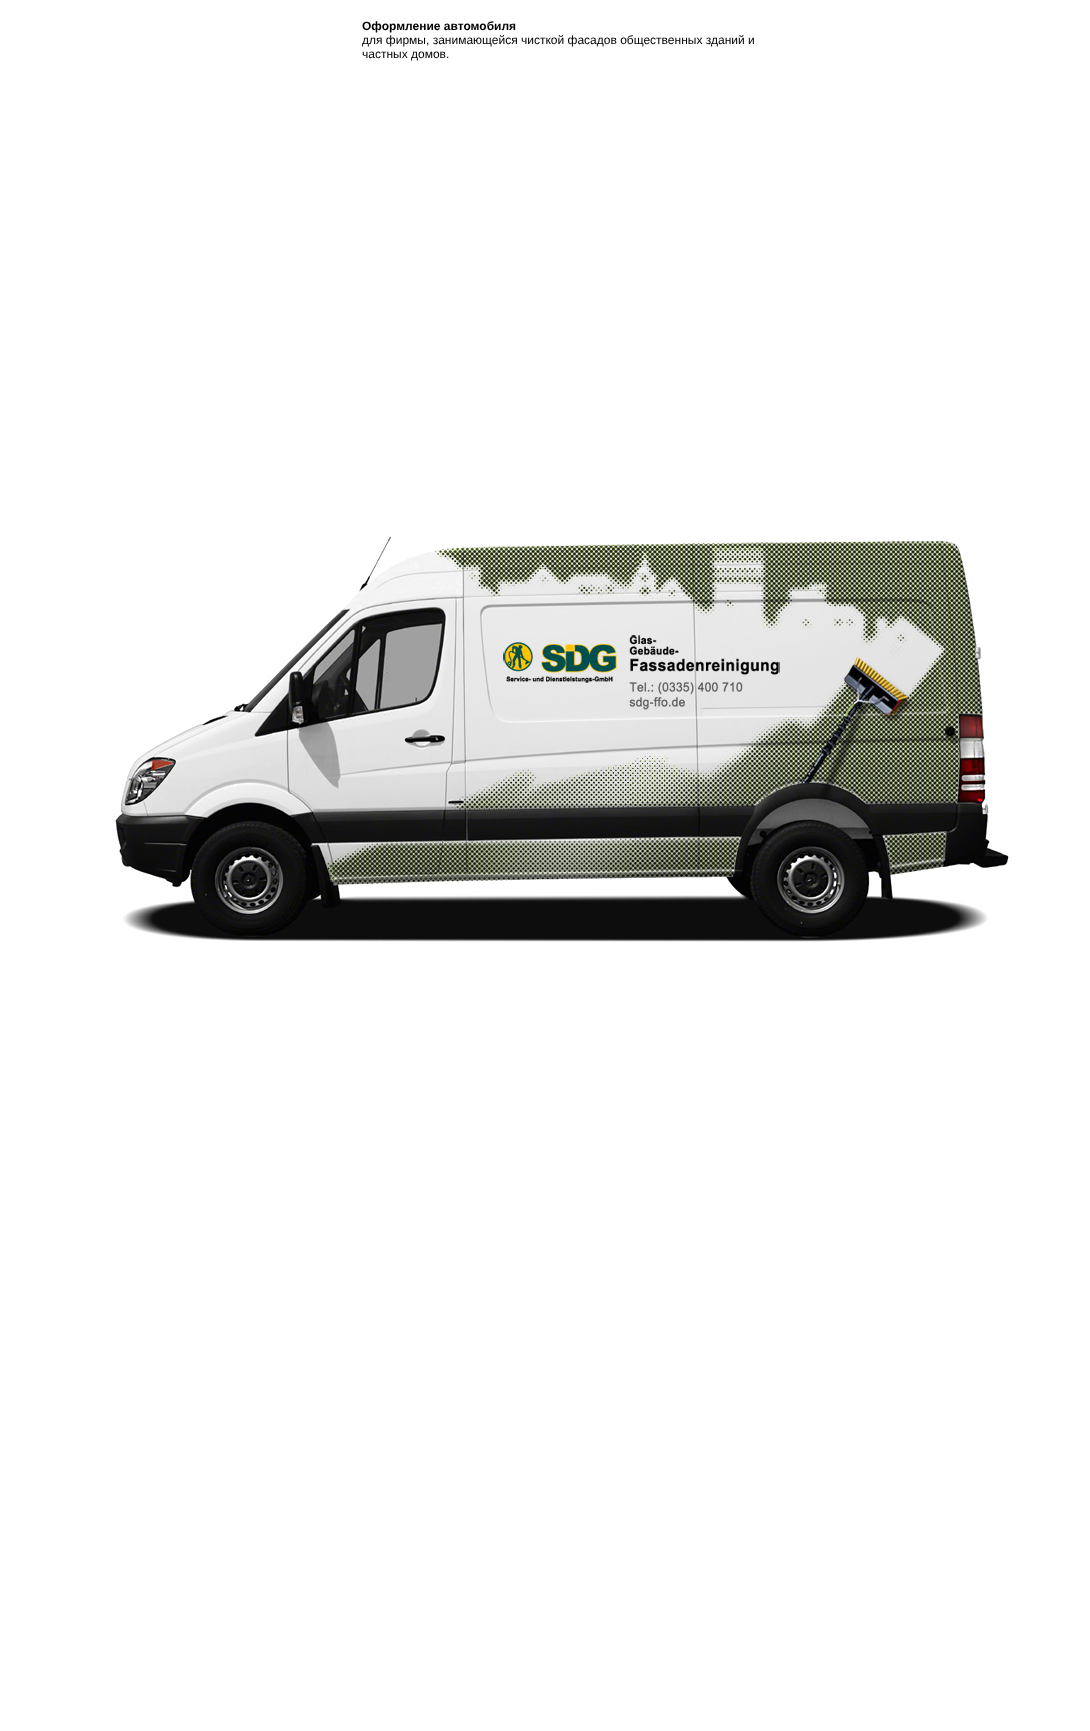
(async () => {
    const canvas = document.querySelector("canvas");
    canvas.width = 1090;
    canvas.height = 1731;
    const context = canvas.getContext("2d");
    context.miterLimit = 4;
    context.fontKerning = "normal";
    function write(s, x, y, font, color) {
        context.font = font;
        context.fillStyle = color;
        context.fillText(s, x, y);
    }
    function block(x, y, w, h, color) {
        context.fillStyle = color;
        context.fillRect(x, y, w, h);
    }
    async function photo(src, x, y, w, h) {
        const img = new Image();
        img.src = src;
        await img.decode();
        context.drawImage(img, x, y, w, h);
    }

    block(0, 0, 1090, 1731, "rgb(255, 255, 255)");
    write("Оформление автомобиля", 362, 30, "bold 12px Liberation Sans", "rgb(0, 0, 0)");
    write("для фирмы, занимающейся чисткой фасадов общественных зданий и", 362, 44, "12px Liberation Sans", "rgb(0, 0, 0)");
    write("частных домов.", 362, 58, "12px Liberation Sans", "rgb(0, 0, 0)");
    await photo("media/1.png", 115, 536, 894, 406);
})();
